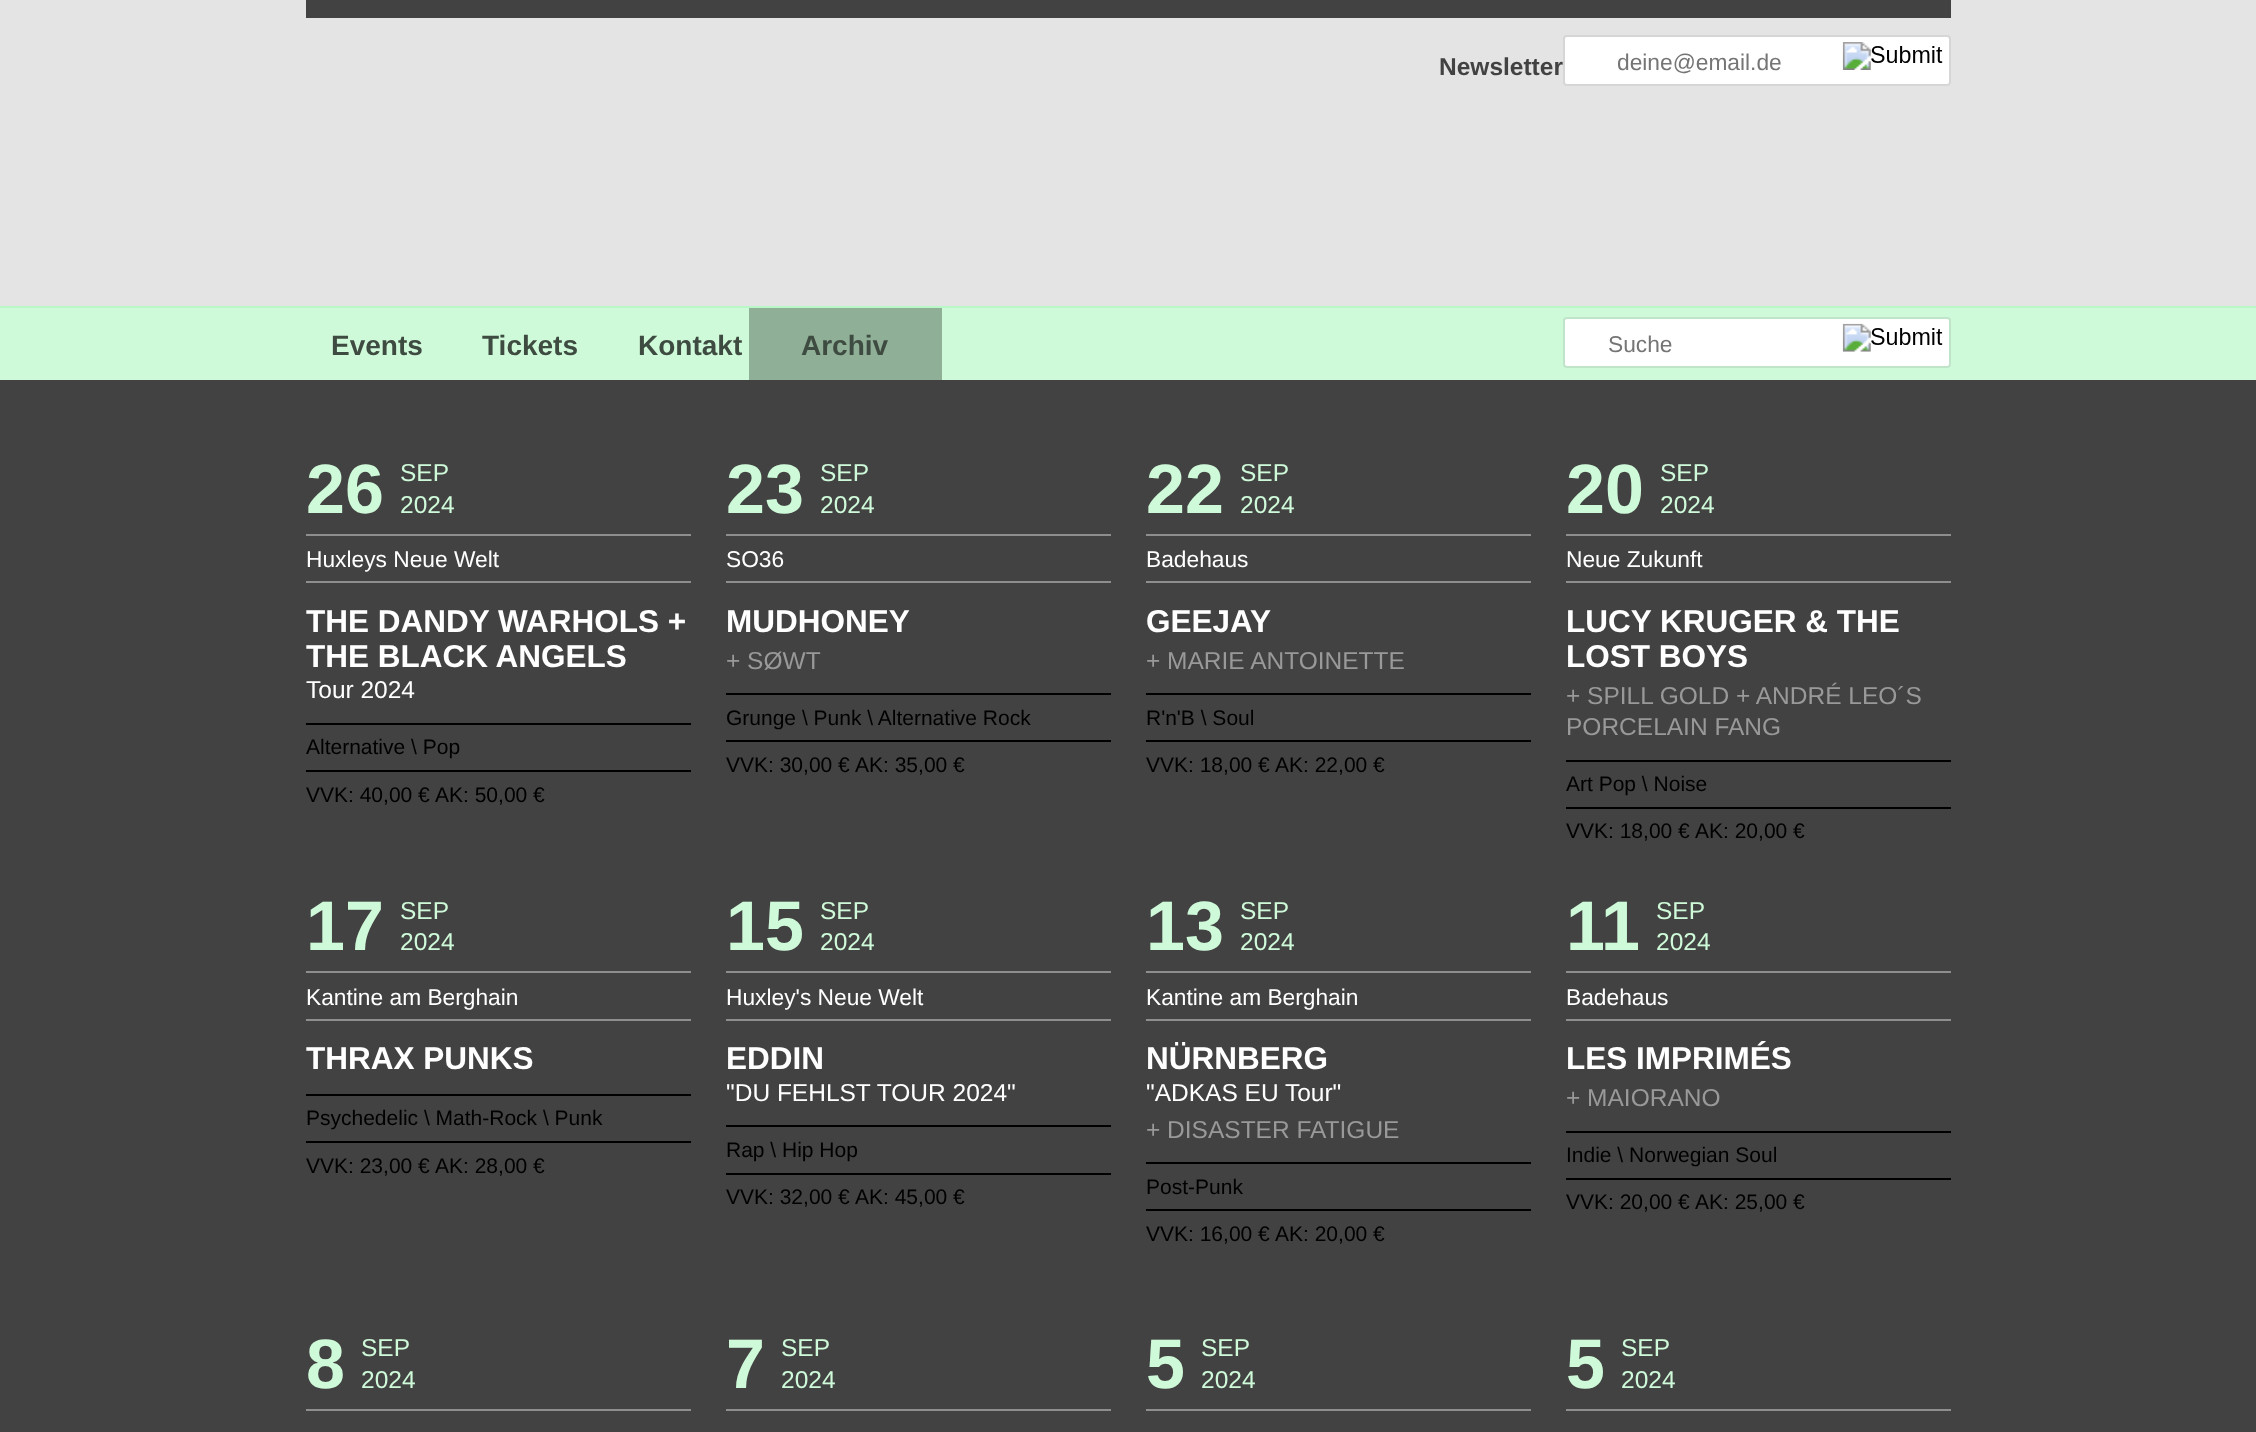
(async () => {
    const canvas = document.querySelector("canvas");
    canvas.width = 2256;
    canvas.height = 1432;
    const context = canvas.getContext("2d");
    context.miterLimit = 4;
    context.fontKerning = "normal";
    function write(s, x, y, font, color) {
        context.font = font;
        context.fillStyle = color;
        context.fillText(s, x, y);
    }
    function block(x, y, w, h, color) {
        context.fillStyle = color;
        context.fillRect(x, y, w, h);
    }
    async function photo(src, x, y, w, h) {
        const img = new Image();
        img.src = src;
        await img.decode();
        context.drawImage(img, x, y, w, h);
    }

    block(0, 0, 2256, 1432, "rgb(228, 228, 228)");
    block(306, 0, 1645, 18, "rgb(66, 66, 66)");
    write("Newsletter", 1439, 75, "bold 24.5px Liberation Sans", "rgb(66, 66, 66)");
    context.fillStyle = "rgb(255, 255, 255)";
    context.beginPath();
    context.roundRect(1564, 36, 386, 49, 3);
    context.fill();
    context.strokeStyle = "rgb(214, 214, 214)";
    context.lineWidth = 2;
    context.stroke();
    write("deine@email.de", 1617, 70, "22.75px Liberation Sans", "rgb(117, 117, 117)");
    await photo("media/1.png", 1842, 42, 101, 28);
    block(0, 308, 2256, 72, "rgb(207, 250, 217)");
    block(0, 306, 2256, 2, "rgb(184, 248, 199)");
    write("Events", 331, 355, "bold 28px Liberation Sans", "rgb(62, 75, 65)");
    write("Tickets", 482, 355, "bold 28px Liberation Sans", "rgb(62, 75, 65)");
    write("Kontakt", 638, 355, "bold 28px Liberation Sans", "rgb(62, 75, 65)");
    block(749, 308, 193, 72, "rgb(144, 175, 151)");
    write("Archiv", 801, 355, "bold 28px Liberation Sans", "rgb(62, 75, 65)");
    context.fillStyle = "rgb(255, 255, 255)";
    context.beginPath();
    context.roundRect(1564, 318, 386, 49, 3);
    context.fill();
    context.strokeStyle = "rgb(192, 228, 201)";
    context.stroke();
    write("Suche", 1608, 352, "22.75px Liberation Sans", "rgb(117, 117, 117)");
    await photo("media/2.png", 1842, 323, 101, 29);
    block(0, 380, 2256, 1052, "rgb(66, 66, 66)");
    write("26", 306, 513, "bold 70px Liberation Sans", "rgb(207, 250, 217)");
    write("SEP", 400, 481, "24.5px Liberation Sans", "rgb(207, 250, 217)");
    write("2024", 400, 513, "24.5px Liberation Sans", "rgb(207, 250, 217)");
    block(306, 534, 385, 2, "rgb(142, 142, 142)");
    block(306, 581, 385, 2, "rgb(142, 142, 142)");
    write("Huxleys Neue Welt", 306, 567, "22.75px Liberation Sans", "rgb(255, 255, 255)");
    write("THE DANDY WARHOLS +", 306, 632, "bold 31.5px Liberation Sans", "rgb(255, 255, 255)");
    write("THE BLACK ANGELS", 306, 667, "bold 31.5px Liberation Sans", "rgb(255, 255, 255)");
    write("Tour 2024", 306, 698, "24.5px Liberation Sans", "rgb(255, 255, 255)");
    block(306, 723, 385, 2, "rgb(0, 0, 0)");
    write("Alternative \\ Pop", 306, 754, "21px Liberation Sans", "rgb(0, 0, 0)");
    block(306, 770, 385, 2, "rgb(0, 0, 0)");
    write("VVK: 40,00 €", 306, 802, "21px Liberation Sans", "rgb(0, 0, 0)");
    write("AK: 50,00 €", 435, 802, "21px Liberation Sans", "rgb(0, 0, 0)");
    write("23", 726, 513, "bold 70px Liberation Sans", "rgb(207, 250, 217)");
    write("SEP", 820, 481, "24.5px Liberation Sans", "rgb(207, 250, 217)");
    write("2024", 820, 513, "24.5px Liberation Sans", "rgb(207, 250, 217)");
    block(726, 534, 385, 2, "rgb(142, 142, 142)");
    block(726, 581, 385, 2, "rgb(142, 142, 142)");
    write("SO36", 726, 567, "22.75px Liberation Sans", "rgb(255, 255, 255)");
    write("MUDHONEY", 726, 632, "bold 31.5px Liberation Sans", "rgb(255, 255, 255)");
    write("+ SØWT", 726, 669, "24.5px Liberation Sans", "rgb(153, 153, 153)");
    block(726, 693, 385, 2, "rgb(0, 0, 0)");
    write("Grunge \\ Punk \\ Alternative Rock", 726, 725, "21px Liberation Sans", "rgb(0, 0, 0)");
    block(726, 740, 385, 2, "rgb(0, 0, 0)");
    write("VVK: 30,00 €", 726, 772, "21px Liberation Sans", "rgb(0, 0, 0)");
    write("AK: 35,00 €", 855, 772, "21px Liberation Sans", "rgb(0, 0, 0)");
    write("22", 1146, 513, "bold 70px Liberation Sans", "rgb(207, 250, 217)");
    write("SEP", 1240, 481, "24.5px Liberation Sans", "rgb(207, 250, 217)");
    write("2024", 1240, 513, "24.5px Liberation Sans", "rgb(207, 250, 217)");
    block(1146, 534, 385, 2, "rgb(142, 142, 142)");
    block(1146, 581, 385, 2, "rgb(142, 142, 142)");
    write("Badehaus", 1146, 567, "22.75px Liberation Sans", "rgb(255, 255, 255)");
    write("GEEJAY", 1146, 632, "bold 31.5px Liberation Sans", "rgb(255, 255, 255)");
    write("+ MARIE ANTOINETTE", 1146, 669, "24.5px Liberation Sans", "rgb(153, 153, 153)");
    block(1146, 693, 385, 2, "rgb(0, 0, 0)");
    write("R'n'B \\ Soul", 1146, 725, "21px Liberation Sans", "rgb(0, 0, 0)");
    block(1146, 740, 385, 2, "rgb(0, 0, 0)");
    write("VVK: 18,00 €", 1146, 772, "21px Liberation Sans", "rgb(0, 0, 0)");
    write("AK: 22,00 €", 1275, 772, "21px Liberation Sans", "rgb(0, 0, 0)");
    write("20", 1566, 513, "bold 70px Liberation Sans", "rgb(207, 250, 217)");
    write("SEP", 1660, 481, "24.5px Liberation Sans", "rgb(207, 250, 217)");
    write("2024", 1660, 513, "24.5px Liberation Sans", "rgb(207, 250, 217)");
    block(1566, 534, 385, 2, "rgb(142, 142, 142)");
    block(1566, 581, 385, 2, "rgb(142, 142, 142)");
    write("Neue Zukunft", 1566, 567, "22.75px Liberation Sans", "rgb(255, 255, 255)");
    write("LUCY KRUGER & THE", 1566, 632, "bold 31.5px Liberation Sans", "rgb(255, 255, 255)");
    write("LOST BOYS", 1566, 667, "bold 31.5px Liberation Sans", "rgb(255, 255, 255)");
    write("+ SPILL GOLD + ANDRÉ LEO´S", 1566, 704, "24.5px Liberation Sans", "rgb(153, 153, 153)");
    write("PORCELAIN FANG", 1566, 735, "24.5px Liberation Sans", "rgb(153, 153, 153)");
    block(1566, 760, 385, 2, "rgb(0, 0, 0)");
    write("Art Pop \\ Noise", 1566, 791, "21px Liberation Sans", "rgb(0, 0, 0)");
    block(1566, 807, 385, 2, "rgb(0, 0, 0)");
    write("VVK: 18,00 €", 1566, 838, "21px Liberation Sans", "rgb(0, 0, 0)");
    write("AK: 20,00 €", 1695, 838, "21px Liberation Sans", "rgb(0, 0, 0)");
    write("17", 306, 950, "bold 70px Liberation Sans", "rgb(207, 250, 217)");
    write("SEP", 400, 919, "24.5px Liberation Sans", "rgb(207, 250, 217)");
    write("2024", 400, 950, "24.5px Liberation Sans", "rgb(207, 250, 217)");
    block(306, 971, 385, 2, "rgb(142, 142, 142)");
    block(306, 1019, 385, 2, "rgb(142, 142, 142)");
    write("Kantine am Berghain", 306, 1005, "22.75px Liberation Sans", "rgb(255, 255, 255)");
    write("THRAX PUNKS", 306, 1069, "bold 31.5px Liberation Sans", "rgb(255, 255, 255)");
    block(306, 1094, 385, 2, "rgb(0, 0, 0)");
    write("Psychedelic \\ Math-Rock \\ Punk", 306, 1125, "21px Liberation Sans", "rgb(0, 0, 0)");
    block(306, 1141, 385, 2, "rgb(0, 0, 0)");
    write("VVK: 23,00 €", 306, 1173, "21px Liberation Sans", "rgb(0, 0, 0)");
    write("AK: 28,00 €", 435, 1173, "21px Liberation Sans", "rgb(0, 0, 0)");
    write("15", 726, 950, "bold 70px Liberation Sans", "rgb(207, 250, 217)");
    write("SEP", 820, 919, "24.5px Liberation Sans", "rgb(207, 250, 217)");
    write("2024", 820, 950, "24.5px Liberation Sans", "rgb(207, 250, 217)");
    block(726, 971, 385, 2, "rgb(142, 142, 142)");
    block(726, 1019, 385, 2, "rgb(142, 142, 142)");
    write("Huxley's Neue Welt", 726, 1005, "22.75px Liberation Sans", "rgb(255, 255, 255)");
    write("EDDIN", 726, 1069, "bold 31.5px Liberation Sans", "rgb(255, 255, 255)");
    write("\"DU FEHLST TOUR 2024\"", 726, 1101, "24.5px Liberation Sans", "rgb(255, 255, 255)");
    block(726, 1125, 385, 2, "rgb(0, 0, 0)");
    write("Rap \\ Hip Hop", 726, 1157, "21px Liberation Sans", "rgb(0, 0, 0)");
    block(726, 1173, 385, 2, "rgb(0, 0, 0)");
    write("VVK: 32,00 €", 726, 1204, "21px Liberation Sans", "rgb(0, 0, 0)");
    write("AK: 45,00 €", 855, 1204, "21px Liberation Sans", "rgb(0, 0, 0)");
    write("13", 1146, 950, "bold 70px Liberation Sans", "rgb(207, 250, 217)");
    write("SEP", 1240, 919, "24.5px Liberation Sans", "rgb(207, 250, 217)");
    write("2024", 1240, 950, "24.5px Liberation Sans", "rgb(207, 250, 217)");
    block(1146, 971, 385, 2, "rgb(142, 142, 142)");
    block(1146, 1019, 385, 2, "rgb(142, 142, 142)");
    write("Kantine am Berghain", 1146, 1005, "22.75px Liberation Sans", "rgb(255, 255, 255)");
    write("NÜRNBERG", 1146, 1069, "bold 31.5px Liberation Sans", "rgb(255, 255, 255)");
    write("\"ADKAS EU Tour\"", 1146, 1101, "24.5px Liberation Sans", "rgb(255, 255, 255)");
    write("+ DISASTER FATIGUE", 1146, 1138, "24.5px Liberation Sans", "rgb(153, 153, 153)");
    block(1146, 1162, 385, 2, "rgb(0, 0, 0)");
    write("Post-Punk", 1146, 1194, "21px Liberation Sans", "rgb(0, 0, 0)");
    block(1146, 1209, 385, 2, "rgb(0, 0, 0)");
    write("VVK: 16,00 €", 1146, 1241, "21px Liberation Sans", "rgb(0, 0, 0)");
    write("AK: 20,00 €", 1275, 1241, "21px Liberation Sans", "rgb(0, 0, 0)");
    write("11", 1566, 950, "bold 70px Liberation Sans", "rgb(207, 250, 217)");
    write("SEP", 1656, 919, "24.5px Liberation Sans", "rgb(207, 250, 217)");
    write("2024", 1656, 950, "24.5px Liberation Sans", "rgb(207, 250, 217)");
    block(1566, 971, 385, 2, "rgb(142, 142, 142)");
    block(1566, 1019, 385, 2, "rgb(142, 142, 142)");
    write("Badehaus", 1566, 1005, "22.75px Liberation Sans", "rgb(255, 255, 255)");
    write("LES IMPRIMÉS", 1566, 1069, "bold 31.5px Liberation Sans", "rgb(255, 255, 255)");
    write("+ MAIORANO", 1566, 1106, "24.5px Liberation Sans", "rgb(153, 153, 153)");
    block(1566, 1131, 385, 2, "rgb(0, 0, 0)");
    write("Indie \\ Norwegian Soul", 1566, 1162, "21px Liberation Sans", "rgb(0, 0, 0)");
    block(1566, 1178, 385, 2, "rgb(0, 0, 0)");
    write("VVK: 20,00 €", 1566, 1209, "21px Liberation Sans", "rgb(0, 0, 0)");
    write("AK: 25,00 €", 1695, 1209, "21px Liberation Sans", "rgb(0, 0, 0)");
    write("8", 306, 1388, "bold 70px Liberation Sans", "rgb(207, 250, 217)");
    write("SEP", 361, 1356, "24.5px Liberation Sans", "rgb(207, 250, 217)");
    write("2024", 361, 1388, "24.5px Liberation Sans", "rgb(207, 250, 217)");
    block(306, 1409, 385, 2, "rgb(142, 142, 142)");
    write("7", 726, 1388, "bold 70px Liberation Sans", "rgb(207, 250, 217)");
    write("SEP", 781, 1356, "24.5px Liberation Sans", "rgb(207, 250, 217)");
    write("2024", 781, 1388, "24.5px Liberation Sans", "rgb(207, 250, 217)");
    block(726, 1409, 385, 2, "rgb(142, 142, 142)");
    write("5", 1146, 1388, "bold 70px Liberation Sans", "rgb(207, 250, 217)");
    write("SEP", 1201, 1356, "24.5px Liberation Sans", "rgb(207, 250, 217)");
    write("2024", 1201, 1388, "24.5px Liberation Sans", "rgb(207, 250, 217)");
    block(1146, 1409, 385, 2, "rgb(142, 142, 142)");
    write("5", 1566, 1388, "bold 70px Liberation Sans", "rgb(207, 250, 217)");
    write("SEP", 1621, 1356, "24.5px Liberation Sans", "rgb(207, 250, 217)");
    write("2024", 1621, 1388, "24.5px Liberation Sans", "rgb(207, 250, 217)");
    block(1566, 1409, 385, 2, "rgb(142, 142, 142)");
})();
